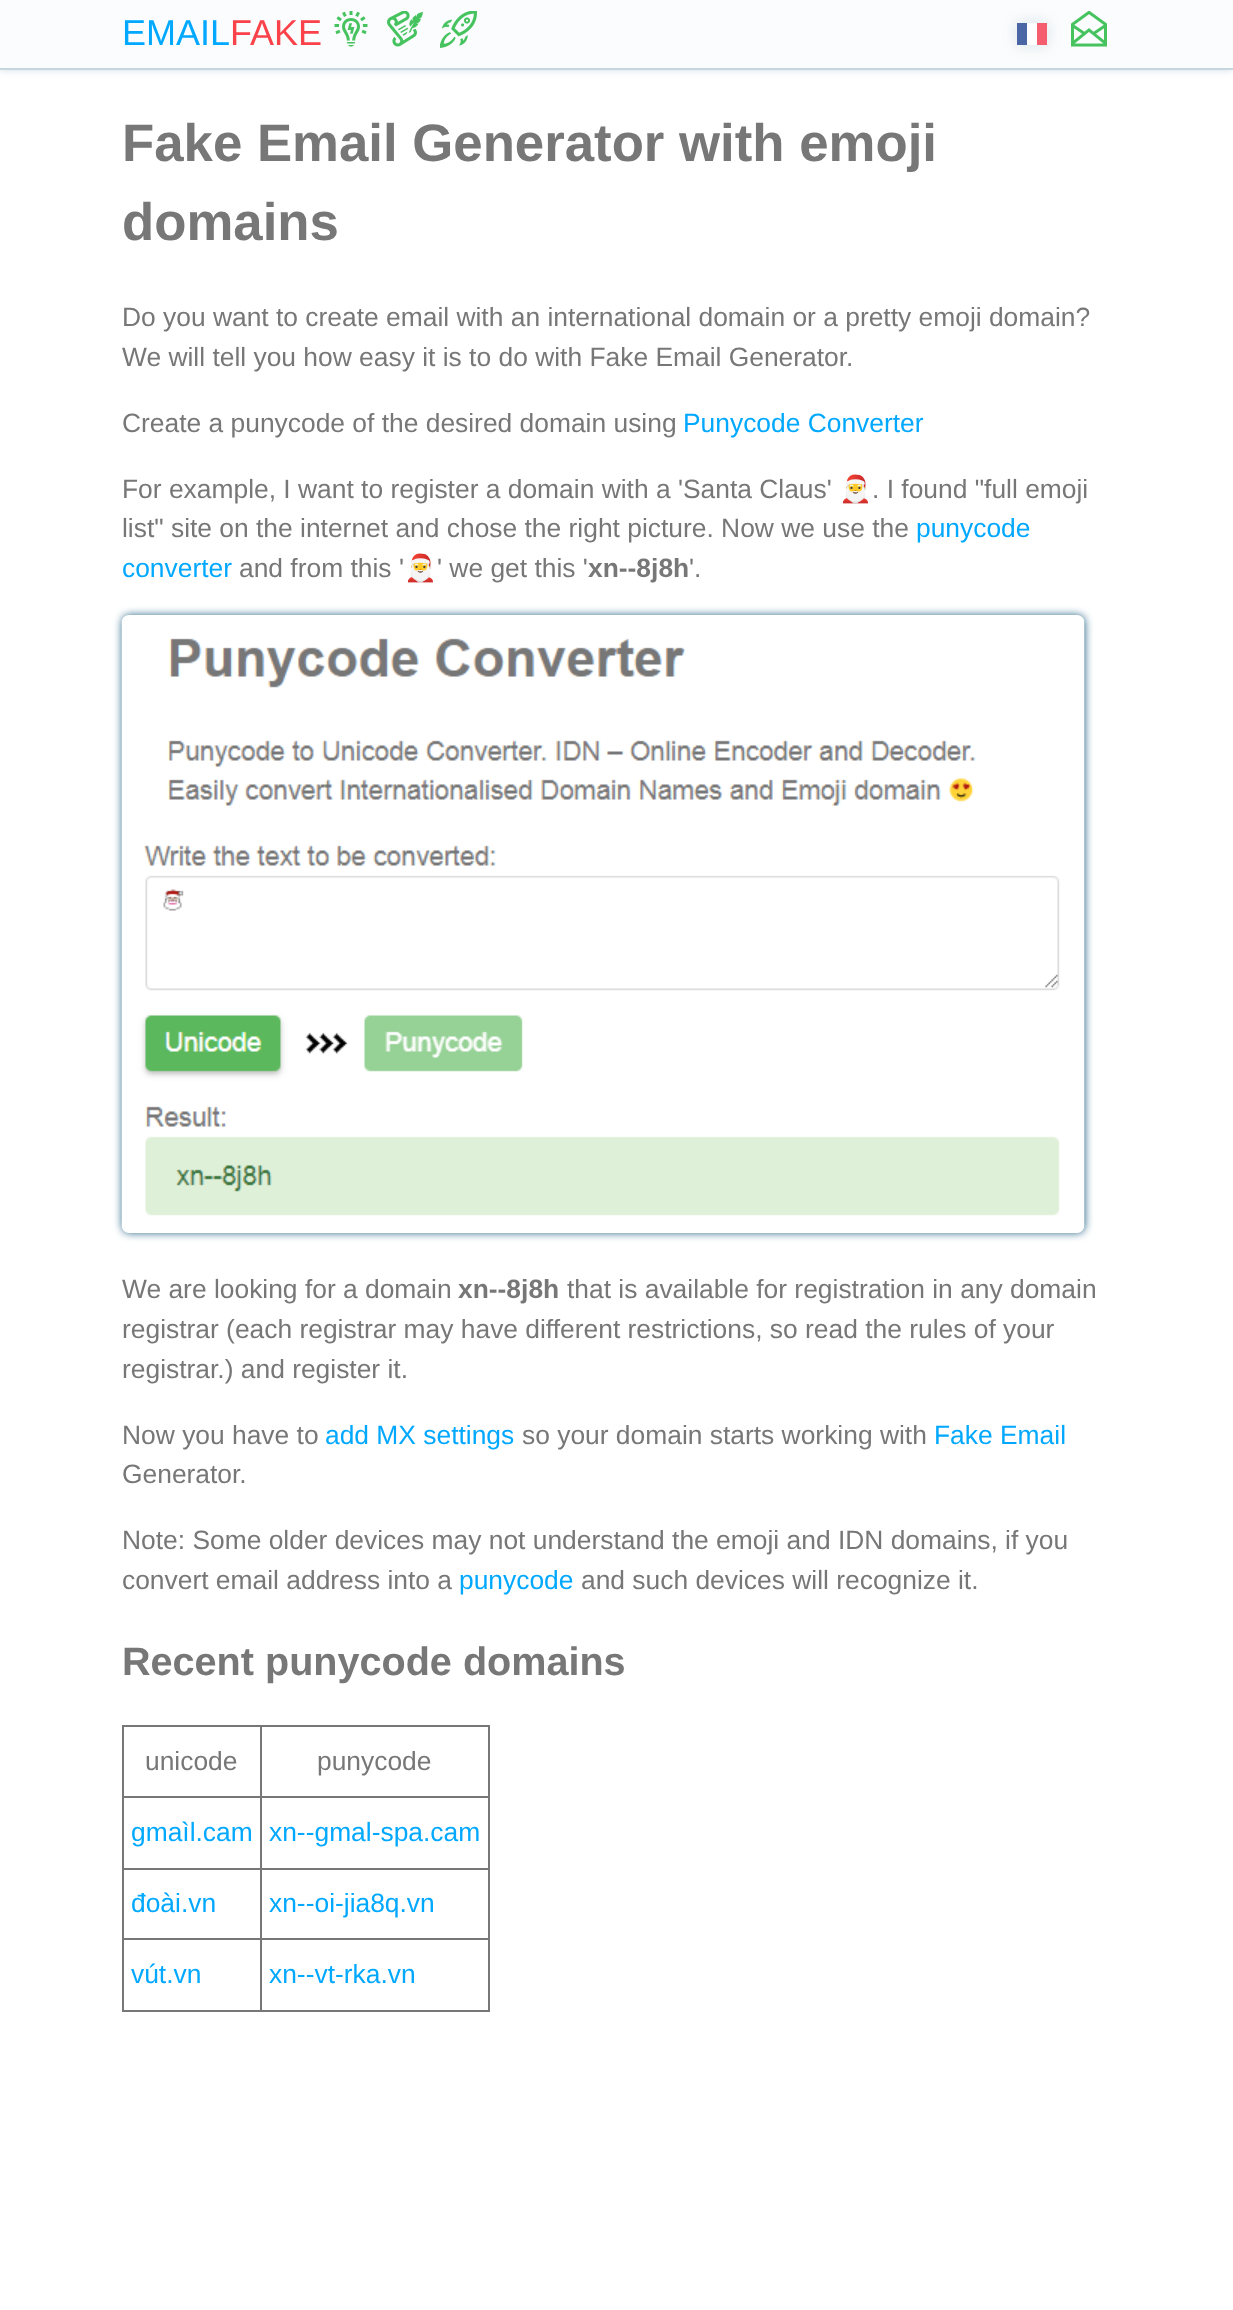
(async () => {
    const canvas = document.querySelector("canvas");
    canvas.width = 1233;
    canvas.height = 2310;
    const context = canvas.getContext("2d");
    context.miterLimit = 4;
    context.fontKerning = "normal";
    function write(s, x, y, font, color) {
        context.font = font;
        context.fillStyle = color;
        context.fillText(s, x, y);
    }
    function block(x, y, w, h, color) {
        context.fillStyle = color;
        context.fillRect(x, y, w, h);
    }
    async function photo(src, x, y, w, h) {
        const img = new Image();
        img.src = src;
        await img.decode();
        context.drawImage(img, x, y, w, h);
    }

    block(0, 0, 1233, 2310, "rgb(255, 255, 255)");
    context.fillStyle = "rgb(197, 214, 222)";
    context.filter = "blur(4px)";
    context.beginPath();
    context.rect(0, 0, 1233, 69);
    context.fill();
    context.filter = "none";
    block(0, 0, 1233, 68, "rgb(251, 252, 253)");
    block(0, 68, 1233, 2, "rgb(197, 214, 222)");
    write("EMAIL", 122, 45, "36px Liberation Sans", "rgb(0, 168, 255)");
    write("FAKE", 230, 45, "36px Liberation Sans", "rgb(250, 66, 74)");
    await photo("media/1.png", 334, 11, 34, 36);
    await photo("media/2.png", 387, 11, 36, 36);
    await photo("media/3.png", 440, 11, 37, 37);
    context.fillStyle = "rgb(213, 225, 231)";
    context.filter = "blur(7.5px)";
    context.beginPath();
    context.rect(1017, 23, 30, 22);
    context.fill();
    context.filter = "none";
    block(1027, 23, 10, 22, "rgb(254, 254, 254)");
    block(1017, 23, 10, 22, "rgb(75, 102, 165)");
    block(1037, 23, 10, 22, "rgb(245, 92, 110)");
    await photo("media/4.png", 1071, 11, 36, 36);
    write("Fake Email Generator with emoji", 122, 161, "bold 52.75px Liberation Sans", "rgb(119, 119, 119)");
    write("domains", 122, 240, "bold 52.75px Liberation Sans", "rgb(119, 119, 119)");
    write("Do you want to create email with an international domain or a pretty emoji domain?", 122, 326, "26.4px Liberation Sans", "rgb(119, 119, 119)");
    write("We will tell you how easy it is to do with Fake Email Generator.", 122, 366, "26.4px Liberation Sans", "rgb(119, 119, 119)");
    write("Create a punycode of the desired domain using", 122, 432, "26.4px Liberation Sans", "rgb(119, 119, 119)");
    write("Punycode Converter", 683, 432, "26.4px Liberation Sans", "rgb(0, 168, 255)");
    write("For example, I want to register a domain with a 'Santa Claus'", 122, 498, "26.4px Liberation Sans", "rgb(119, 119, 119)");
    write("🎅", 839, 498, "26.4px Noto Color Emoji", "rgb(119, 119, 119)");
    write(". I found \"full emoji", 872, 498, "26.4px Liberation Sans", "rgb(119, 119, 119)");
    write("list\" site on the internet and chose the right picture. Now we use the", 122, 537, "26.4px Liberation Sans", "rgb(119, 119, 119)");
    write("punycode", 916, 537, "26.4px Liberation Sans", "rgb(0, 168, 255)");
    write("converter", 122, 577, "26.4px Liberation Sans", "rgb(0, 168, 255)");
    write("and from this '", 239, 577, "26.4px Liberation Sans", "rgb(119, 119, 119)");
    write("🎅", 404, 577, "26.4px Noto Color Emoji", "rgb(119, 119, 119)");
    write("' we get this '", 437, 577, "26.4px Liberation Sans", "rgb(119, 119, 119)");
    write("xn--8j8h", 588, 577, "bold 26.4px Liberation Sans", "rgb(119, 119, 119)");
    write("'.", 689, 577, "26.4px Liberation Sans", "rgb(119, 119, 119)");
    context.fillStyle = "rgb(44, 104, 139)";
    context.filter = "blur(4px)";
    context.beginPath();
    context.roundRect(122, 615, 963, 618, 8);
    context.fill();
    context.filter = "none";
    await photo("media/5.png", 121, 615, 964, 618);
    write("We are looking for a domain", 122, 1298, "26.4px Liberation Sans", "rgb(119, 119, 119)");
    write("xn--8j8h", 458, 1298, "bold 26.4px Liberation Sans", "rgb(119, 119, 119)");
    write("that is available for registration in any domain", 567, 1298, "26.4px Liberation Sans", "rgb(119, 119, 119)");
    write("registrar (each registrar may have different restrictions, so read the rules of your", 122, 1338, "26.4px Liberation Sans", "rgb(119, 119, 119)");
    write("registrar.) and register it.", 122, 1378, "26.4px Liberation Sans", "rgb(119, 119, 119)");
    write("Now you have to", 122, 1444, "26.4px Liberation Sans", "rgb(119, 119, 119)");
    write("add MX settings", 325, 1444, "26.4px Liberation Sans", "rgb(0, 168, 255)");
    write("so your domain starts working with", 522, 1444, "26.4px Liberation Sans", "rgb(119, 119, 119)");
    write("Fake Email", 934, 1444, "26.4px Liberation Sans", "rgb(0, 168, 255)");
    write("Generator.", 122, 1483, "26.4px Liberation Sans", "rgb(119, 119, 119)");
    write("Note: Some older devices may not understand the emoji and IDN domains, if you", 122, 1549, "26.4px Liberation Sans", "rgb(119, 119, 119)");
    write("convert email address into a", 122, 1589, "26.4px Liberation Sans", "rgb(119, 119, 119)");
    write("punycode", 459, 1589, "26.4px Liberation Sans", "rgb(0, 168, 255)");
    write("and such devices will recognize it.", 581, 1589, "26.4px Liberation Sans", "rgb(119, 119, 119)");
    write("Recent punycode domains", 122, 1675, "bold 39.6px Liberation Sans", "rgb(119, 119, 119)");
    block(260, 1725, 229, 2, "rgb(119, 119, 119)");
    block(260, 1796, 229, 2, "rgb(119, 119, 119)");
    block(260, 1868, 229, 2, "rgb(119, 119, 119)");
    block(260, 1938, 229, 2, "rgb(119, 119, 119)");
    block(488, 1938, 2, 74, "rgb(119, 119, 119)");
    block(260, 2010, 229, 2, "rgb(119, 119, 119)");
    block(260, 1938, 2, 74, "rgb(119, 119, 119)");
    block(122, 1938, 139, 2, "rgb(119, 119, 119)");
    block(260, 1868, 2, 72, "rgb(119, 119, 119)");
    block(122, 1868, 139, 2, "rgb(119, 119, 119)");
    block(260, 1796, 2, 73, "rgb(119, 119, 119)");
    block(122, 1796, 139, 2, "rgb(119, 119, 119)");
    block(260, 1725, 2, 72, "rgb(119, 119, 119)");
    block(122, 1725, 139, 2, "rgb(119, 119, 119)");
    block(122, 2010, 139, 2, "rgb(119, 119, 119)");
    block(122, 1938, 2, 74, "rgb(119, 119, 119)");
    block(122, 1868, 2, 72, "rgb(119, 119, 119)");
    block(122, 1796, 2, 73, "rgb(119, 119, 119)");
    block(122, 1725, 2, 72, "rgb(119, 119, 119)");
    write("unicode", 145, 1770, "26.4px Liberation Sans", "rgb(119, 119, 119)");
    block(488, 1868, 2, 72, "rgb(119, 119, 119)");
    block(488, 1796, 2, 73, "rgb(119, 119, 119)");
    block(488, 1725, 2, 72, "rgb(119, 119, 119)");
    write("punycode", 317, 1770, "26.4px Liberation Sans", "rgb(119, 119, 119)");
    write("gmaìl.cam", 131, 1841, "26.4px Liberation Sans", "rgb(0, 168, 255)");
    write("xn--gmal-spa.cam", 269, 1841, "26.4px Liberation Sans", "rgb(0, 168, 255)");
    write("đoài.vn", 131, 1912, "26.4px Liberation Sans", "rgb(0, 168, 255)");
    write("xn--oi-jia8q.vn", 269, 1912, "26.4px Liberation Sans", "rgb(0, 168, 255)");
    write("vút.vn", 131, 1983, "26.4px Liberation Sans", "rgb(0, 168, 255)");
    write("xn--vt-rka.vn", 269, 1983, "26.4px Liberation Sans", "rgb(0, 168, 255)");
})();
